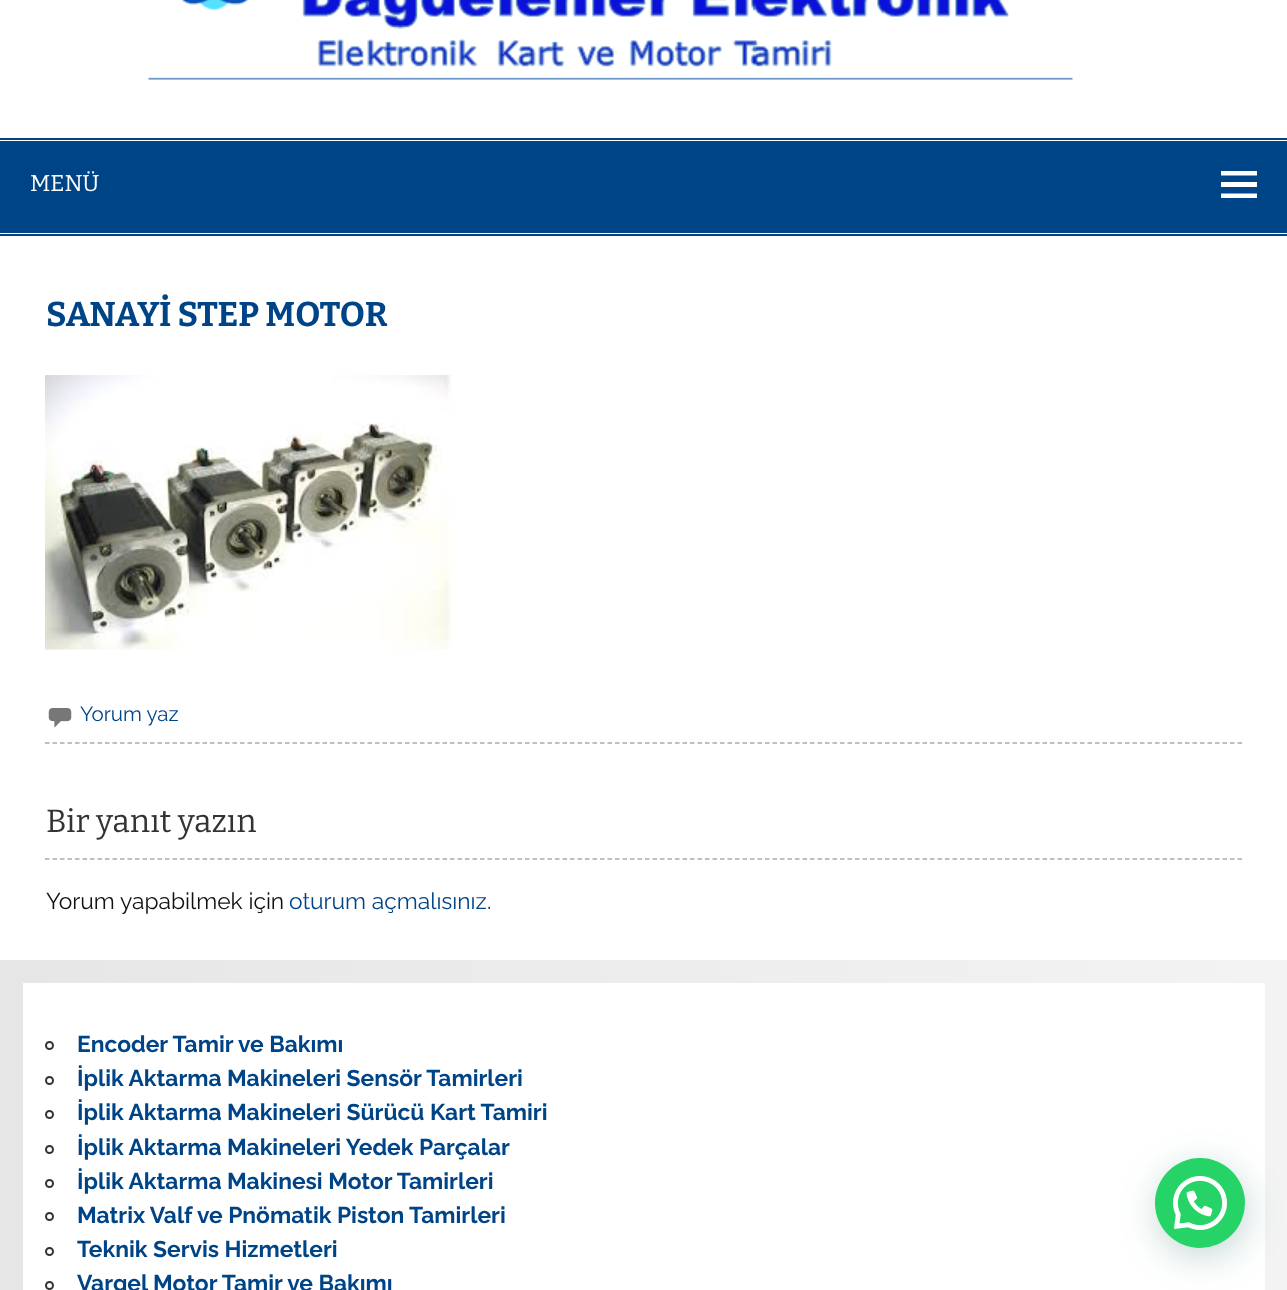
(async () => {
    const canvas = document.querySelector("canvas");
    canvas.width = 1287;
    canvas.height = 1290;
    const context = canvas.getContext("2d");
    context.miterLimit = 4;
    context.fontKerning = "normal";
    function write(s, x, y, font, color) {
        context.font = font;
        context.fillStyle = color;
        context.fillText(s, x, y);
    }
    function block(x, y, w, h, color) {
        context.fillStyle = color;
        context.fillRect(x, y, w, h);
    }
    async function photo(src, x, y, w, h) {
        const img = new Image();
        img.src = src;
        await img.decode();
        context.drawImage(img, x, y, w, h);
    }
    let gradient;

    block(0, 0, 1287, 1290, "rgb(255, 255, 255)");
    await photo("media/1.png", 148, 0, 925, 80);
    block(0, 138, 1287, 2, "rgb(0, 68, 136)");
    block(0, 234, 1287, 2, "rgb(0, 68, 136)");
    block(0, 141, 1287, 92, "rgb(0, 68, 136)");
    write("MENÜ", 30, 191, "22.8px Bitter", "rgb(255, 255, 255)");
    context.beginPath();
    context.moveTo(1221, 198);
    context.lineTo(1221, 193.5);
    context.lineTo(1257, 193.5);
    context.lineTo(1257, 198);
    context.closePath();
    context.moveTo(1221, 171);
    context.lineTo(1257, 171);
    context.lineTo(1257, 175.5);
    context.lineTo(1221, 175.5);
    context.closePath();
    context.moveTo(1221, 187);
    context.lineTo(1221, 182);
    context.lineTo(1257, 182);
    context.lineTo(1257, 187);
    context.closePath();
    context.fill();
    context.beginPath();
    context.moveTo(45, 743);
    context.lineTo(1242, 743);
    context.strokeStyle = "rgb(170, 170, 170)";
    context.lineWidth = 1.5;
    context.setLineDash([4.5, 3]);
    context.stroke();
    write("SANAYİ STEP MOTOR", 46, 326, "bold 34.25px Bitter", "rgb(0, 68, 136)");
    await photo("media/2.png", 45, 375, 408, 275);
    await photo("media/3.png", 48, 708, 24, 20);
    write("Yorum yaz", 80, 721, "20.5px Raleway", "rgb(0, 68, 136)");
    context.beginPath();
    context.moveTo(45, 859);
    context.lineTo(1242, 859);
    context.stroke();
    write("Bir yanıt yazın", 46, 832, "32px Bitter", "rgb(51, 51, 51)");
    write("Yorum yapabilmek için", 46, 909, "22.8px Raleway", "rgb(17, 17, 17)");
    write("oturum açmalısınız", 289, 909, "22.8px Raleway", "rgb(0, 68, 136)");
    write(".", 487, 909, "22.8px Raleway", "rgb(17, 17, 17)");
    gradient = context.createLinearGradient(0, 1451, 1287, 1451);
    gradient.addColorStop(0, "rgb(230, 230, 230)");
    gradient.addColorStop(1, "rgb(243, 243, 243)");
    context.fillStyle = gradient;
    context.fillRect(0, 960, 1287, 330);
    block(23, 983, 1242, 307, "rgb(255, 255, 255)");
    context.beginPath();
    context.arc(49.5, 1045.5, 3.5, 0, Math.PI * 2);
    context.strokeStyle = "rgb(51, 51, 51)";
    context.lineWidth = 2;
    context.setLineDash([]);
    context.stroke();
    write("Encoder Tamir ve Bakımı", 77, 1052, "bold 22.8px Raleway", "rgb(0, 68, 136)");
    context.beginPath();
    context.arc(49.5, 1080.5, 3.5, 0, Math.PI * 2);
    context.stroke();
    write("İplik Aktarma Makineleri Sensör Tamirleri", 77, 1086, "bold 22.8px Raleway", "rgb(0, 68, 136)");
    context.beginPath();
    context.arc(49.5, 1114.5, 3.5, 0, Math.PI * 2);
    context.stroke();
    write("İplik Aktarma Makineleri Sürücü Kart Tamiri", 77, 1120, "bold 22.8px Raleway", "rgb(0, 68, 136)");
    context.beginPath();
    context.arc(49.5, 1149.5, 3.5, 0, Math.PI * 2);
    context.stroke();
    write("İplik Aktarma Makineleri Yedek Parçalar", 77, 1155, "bold 22.8px Raleway", "rgb(0, 68, 136)");
    context.beginPath();
    context.arc(49.5, 1183.5, 3.5, 0, Math.PI * 2);
    context.stroke();
    write("İplik Aktarma Makinesi Motor Tamirleri", 77, 1189, "bold 22.8px Raleway", "rgb(0, 68, 136)");
    context.beginPath();
    context.arc(49.5, 1216.5, 3.5, 0, Math.PI * 2);
    context.stroke();
    write("Matrix Valf ve Pnömatik Piston Tamirleri", 77, 1223, "bold 22.8px Raleway", "rgb(0, 68, 136)");
    context.beginPath();
    context.arc(49.5, 1251.5, 3.5, 0, Math.PI * 2);
    context.stroke();
    write("Teknik Servis Hizmetleri", 77, 1257, "bold 22.8px Raleway", "rgb(0, 68, 136)");
    context.beginPath();
    context.arc(49.5, 1285.5, 3.5, 0, Math.PI * 2);
    context.stroke();
    write("Vargel Motor Tamir ve Bakımı", 77, 1291, "bold 22.8px Raleway", "rgb(0, 68, 136)");
    context.fillStyle = "rgba(7, 94, 84, 0.24)";
    context.filter = "blur(18px)";
    context.beginPath();
    context.roundRect(1157, 1167, 90, 90, 45);
    context.fill();
    context.filter = "none";
    context.fillStyle = "rgb(37, 211, 102)";
    context.beginPath();
    context.arc(1200, 1203, 45, 0, Math.PI * 2);
    context.fill();
    await photo("media/4.png", 1173, 1176, 54, 54);
})();
